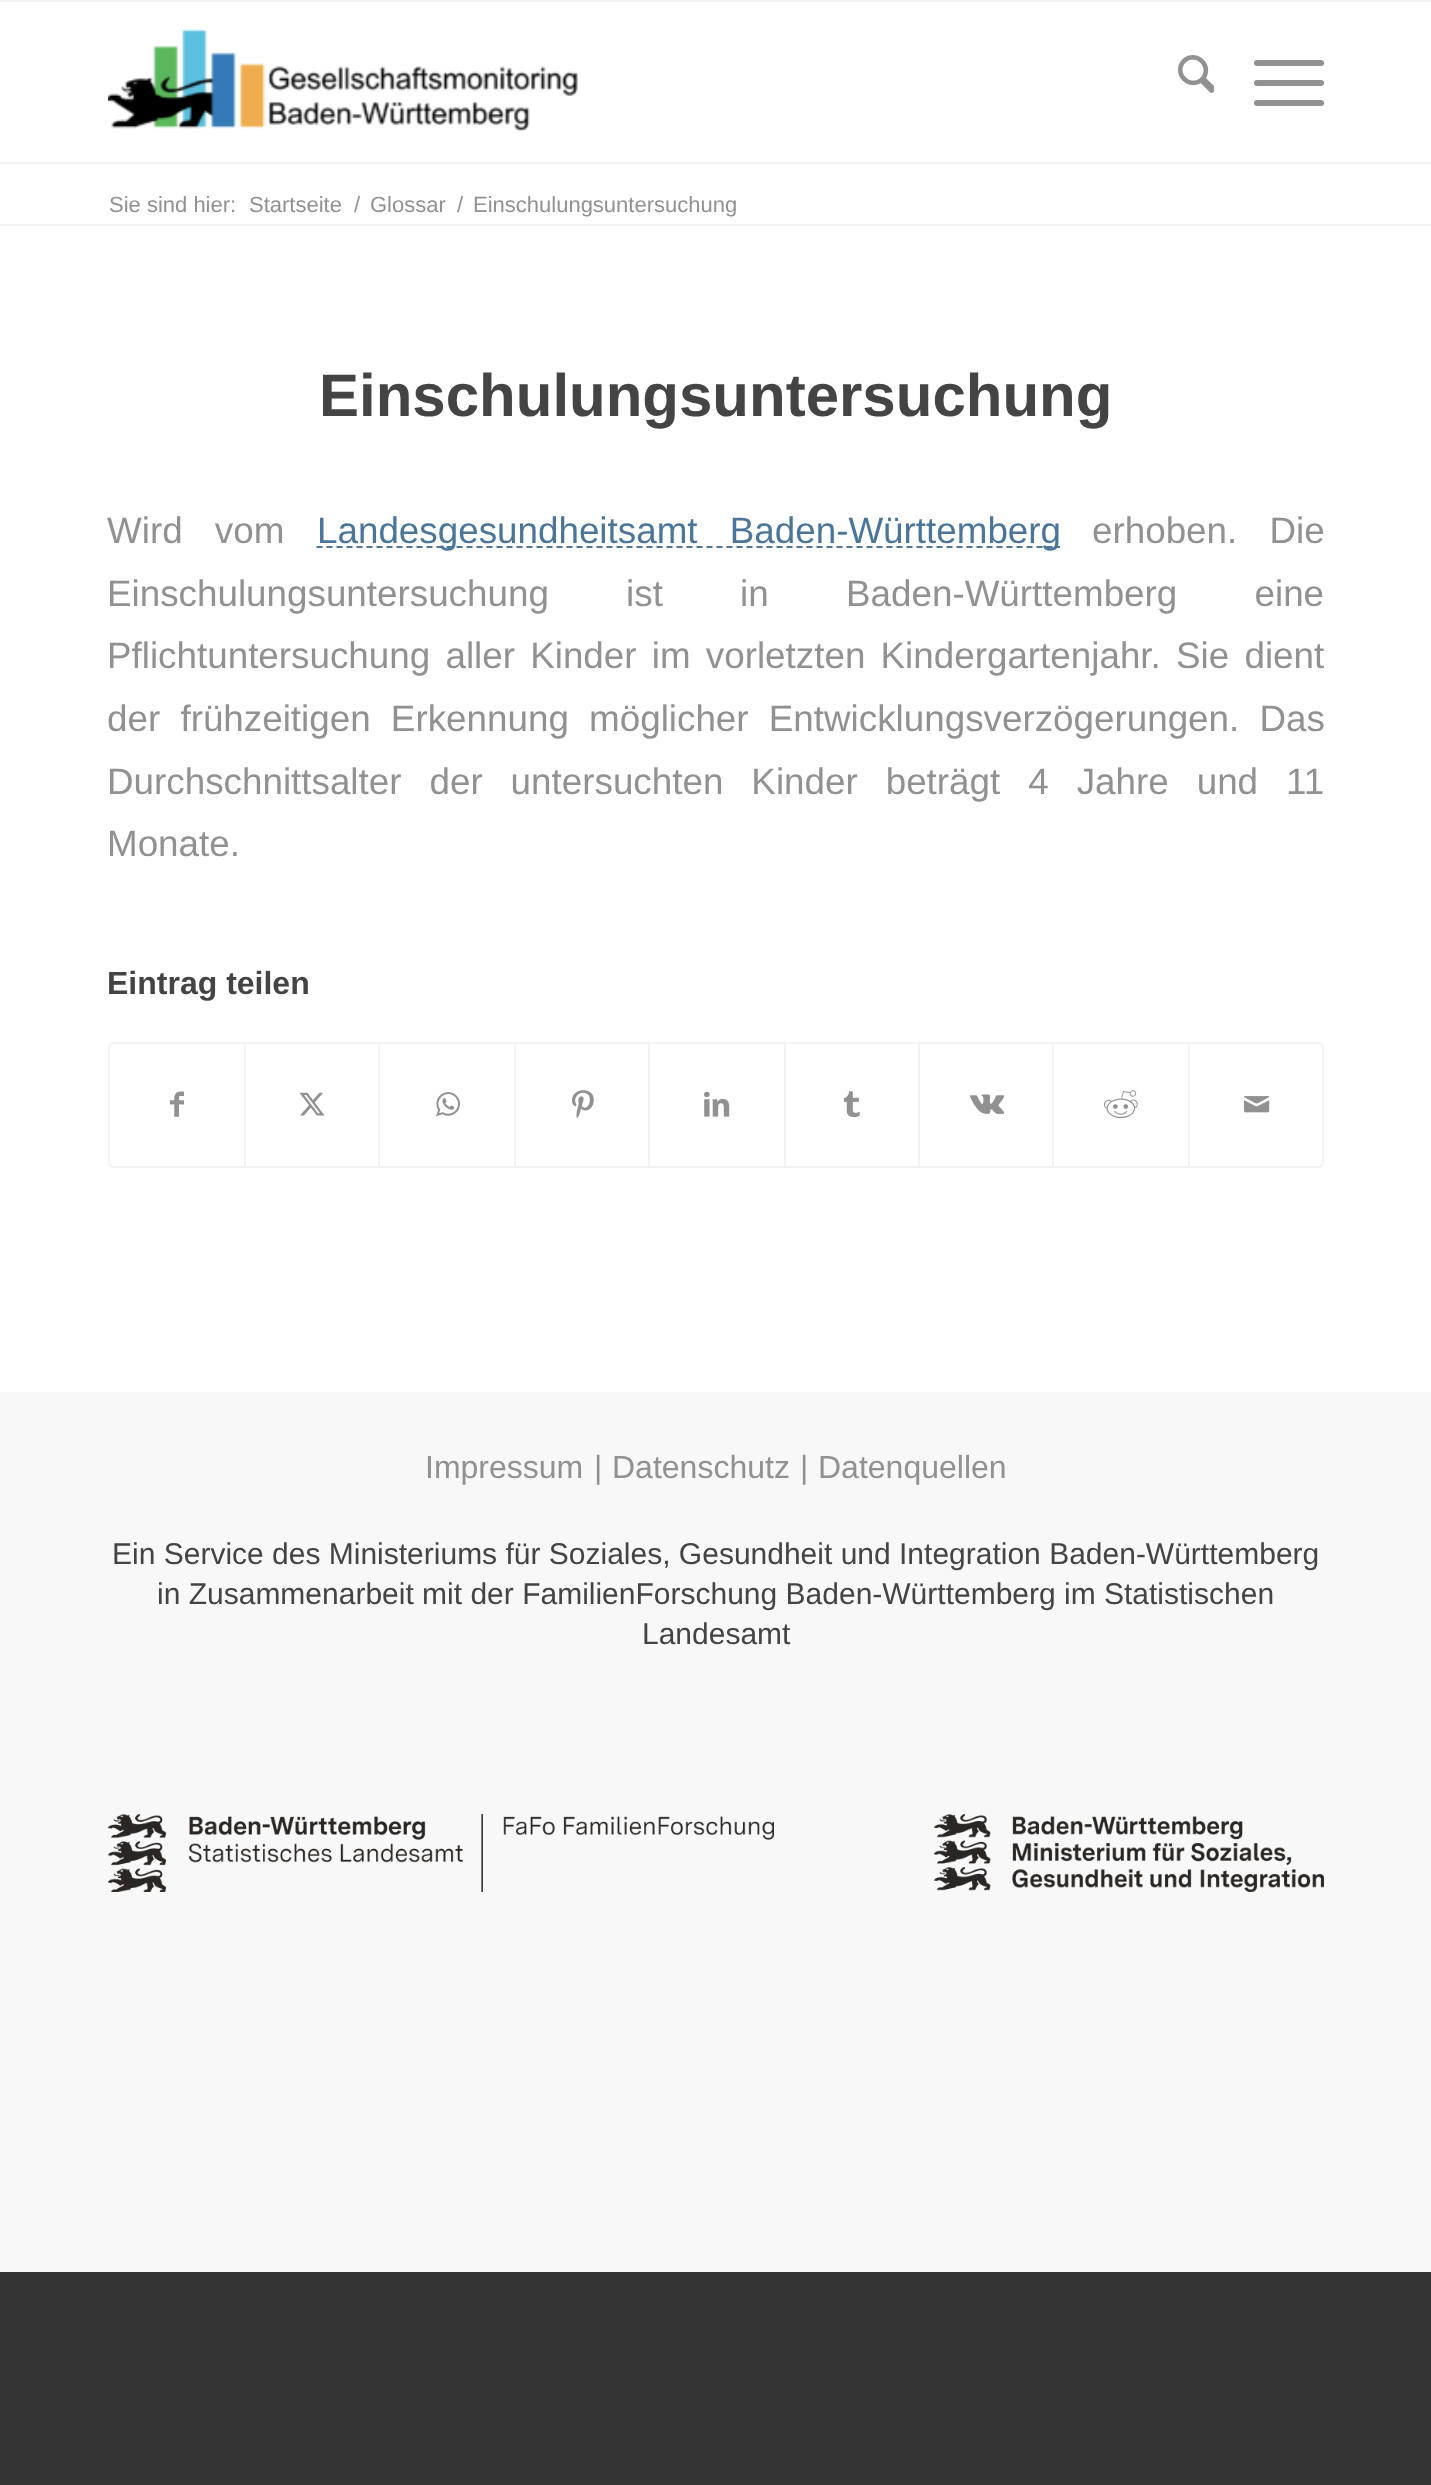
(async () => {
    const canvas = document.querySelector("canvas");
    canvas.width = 1431;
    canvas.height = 2485;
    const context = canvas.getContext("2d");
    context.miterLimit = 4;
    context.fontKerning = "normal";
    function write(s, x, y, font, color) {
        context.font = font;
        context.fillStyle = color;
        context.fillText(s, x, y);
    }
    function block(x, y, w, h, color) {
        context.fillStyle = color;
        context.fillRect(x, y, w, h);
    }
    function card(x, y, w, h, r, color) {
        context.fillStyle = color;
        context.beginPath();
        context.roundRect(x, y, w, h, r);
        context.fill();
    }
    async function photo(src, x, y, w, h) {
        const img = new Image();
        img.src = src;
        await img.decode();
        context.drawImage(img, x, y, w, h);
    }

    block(0, 0, 1431, 2485, "rgb(51, 51, 51)");
    block(0, 2, 1431, 1390, "rgb(255, 255, 255)");
    block(0, 0, 1431, 2, "rgb(242, 242, 242)");
    block(0, 162, 1431, 2, "rgb(242, 242, 242)");
    await photo("media/1.png", 108, 29, 470, 103);
    await photo("media/2.png", 1178, 55, 36, 38);
    card(1254, 80, 70, 6, 3, "rgb(145, 145, 145)");
    card(1254, 60, 70, 6, 3, "rgb(145, 145, 145)");
    card(1254, 100, 70, 6, 3, "rgb(145, 145, 145)");
    write("Sie sind hier:", 109, 212, "22px Liberation Sans", "rgb(145, 145, 145)");
    write("Startseite", 249, 212, "22px Liberation Sans", "rgb(145, 145, 145)");
    write("/", 354, 212, "22px Liberation Sans", "rgb(145, 145, 145)");
    write("Glossar", 370, 212, "22px Liberation Sans", "rgb(145, 145, 145)");
    write("/", 457, 212, "22px Liberation Sans", "rgb(145, 145, 145)");
    write("Einschulungsuntersuchung", 473, 212, "22px Liberation Sans", "rgb(145, 145, 145)");
    block(0, 224, 1431, 2, "rgb(242, 242, 242)");
    write("Einschulungsuntersuchung", 319, 416, "bold 60px Liberation Sans", "rgb(68, 68, 68)");
    context.wordSpacing = "22px";
    write("Wird vom", 107, 543, "36.8px Liberation Sans", "rgb(145, 145, 145)");
    context.beginPath();
    context.moveTo(316.5, 547);
    context.lineTo(1060, 547);
    context.strokeStyle = "rgb(75, 117, 153)";
    context.lineWidth = 2;
    context.setLineDash([6, 4]);
    context.stroke();
    write("Landesgesundheitsamt Baden-Württemberg", 317, 543, "36.8px Liberation Sans", "rgb(75, 117, 153)");
    write("erhoben. Die", 1092, 543, "36.8px Liberation Sans", "rgb(145, 145, 145)");
    context.wordSpacing = "67px";
    write("Einschulungsuntersuchung ist in Baden-Württemberg eine", 107, 606, "36.8px Liberation Sans", "rgb(145, 145, 145)");
    context.wordSpacing = "5px";
    write("Pflichtuntersuchung aller Kinder im vorletzten Kindergartenjahr. Sie dient", 107, 668, "36.8px Liberation Sans", "rgb(145, 145, 145)");
    context.wordSpacing = "10px";
    write("der frühzeitigen Erkennung möglicher Entwicklungsverzögerungen. Das", 107, 731, "36.8px Liberation Sans", "rgb(145, 145, 145)");
    context.wordSpacing = "17.75px";
    write("Durchschnittsalter der untersuchten Kinder beträgt 4 Jahre und 11", 107, 794, "36.8px Liberation Sans", "rgb(145, 145, 145)");
    context.wordSpacing = "0px";
    write("Monate.", 107, 856, "36.8px Liberation Sans", "rgb(145, 145, 145)");
    write("Eintrag teilen", 107, 994, "bold 32px Liberation Sans", "rgb(68, 68, 68)");
    context.beginPath();
    context.roundRect(109, 1043, 1214, 124, 5);
    context.strokeStyle = "rgb(242, 242, 242)";
    context.setLineDash([]);
    context.stroke();
    await photo("media/3.png", 170, 1091, 14, 26);
    block(244, 1044, 2, 122, "rgb(242, 242, 242)");
    await photo("media/4.png", 299, 1092, 26, 24);
    block(378, 1044, 2, 122, "rgb(242, 242, 242)");
    await photo("media/5.png", 436, 1092, 24, 25);
    block(514, 1044, 2, 122, "rgb(242, 242, 242)");
    await photo("media/6.png", 572, 1090, 22, 28);
    block(648, 1044, 2, 122, "rgb(242, 242, 242)");
    await photo("media/7.png", 704, 1091, 26, 26);
    block(784, 1044, 2, 122, "rgb(242, 242, 242)");
    await photo("media/8.png", 844, 1091, 16, 27);
    block(918, 1044, 2, 122, "rgb(242, 242, 242)");
    await photo("media/9.png", 970, 1094, 35, 20);
    block(1052, 1044, 2, 122, "rgb(242, 242, 242)");
    await photo("media/10.png", 1104, 1090, 34, 29);
    block(1188, 1044, 2, 122, "rgb(242, 242, 242)");
    await photo("media/11.png", 1244, 1096, 26, 17);
    block(0, 1392, 1431, 880, "rgb(248, 248, 248)");
    write("Impressum", 425, 1478, "32px Liberation Sans", "rgb(145, 145, 145)");
    write("|", 594, 1478, "32px Liberation Sans", "rgb(145, 145, 145)");
    write("Datenschutz", 612, 1478, "32px Liberation Sans", "rgb(145, 145, 145)");
    write("|", 800, 1478, "32px Liberation Sans", "rgb(145, 145, 145)");
    write("Datenquellen", 818, 1478, "32px Liberation Sans", "rgb(145, 145, 145)");
    write("Ein Service des Ministeriums für Soziales, Gesundheit und Integration Baden-Württemberg", 112, 1564, "30px Liberation Sans", "rgb(68, 68, 68)");
    write("in Zusammenarbeit mit der FamilienForschung Baden-Württemberg im Statistischen", 157, 1604, "30px Liberation Sans", "rgb(68, 68, 68)");
    write("Landesamt", 642, 1644, "30px Liberation Sans", "rgb(68, 68, 68)");
    await photo("media/12.png", 108, 1814, 666, 78);
    await photo("media/13.png", 934, 1814, 390, 78);
})();
